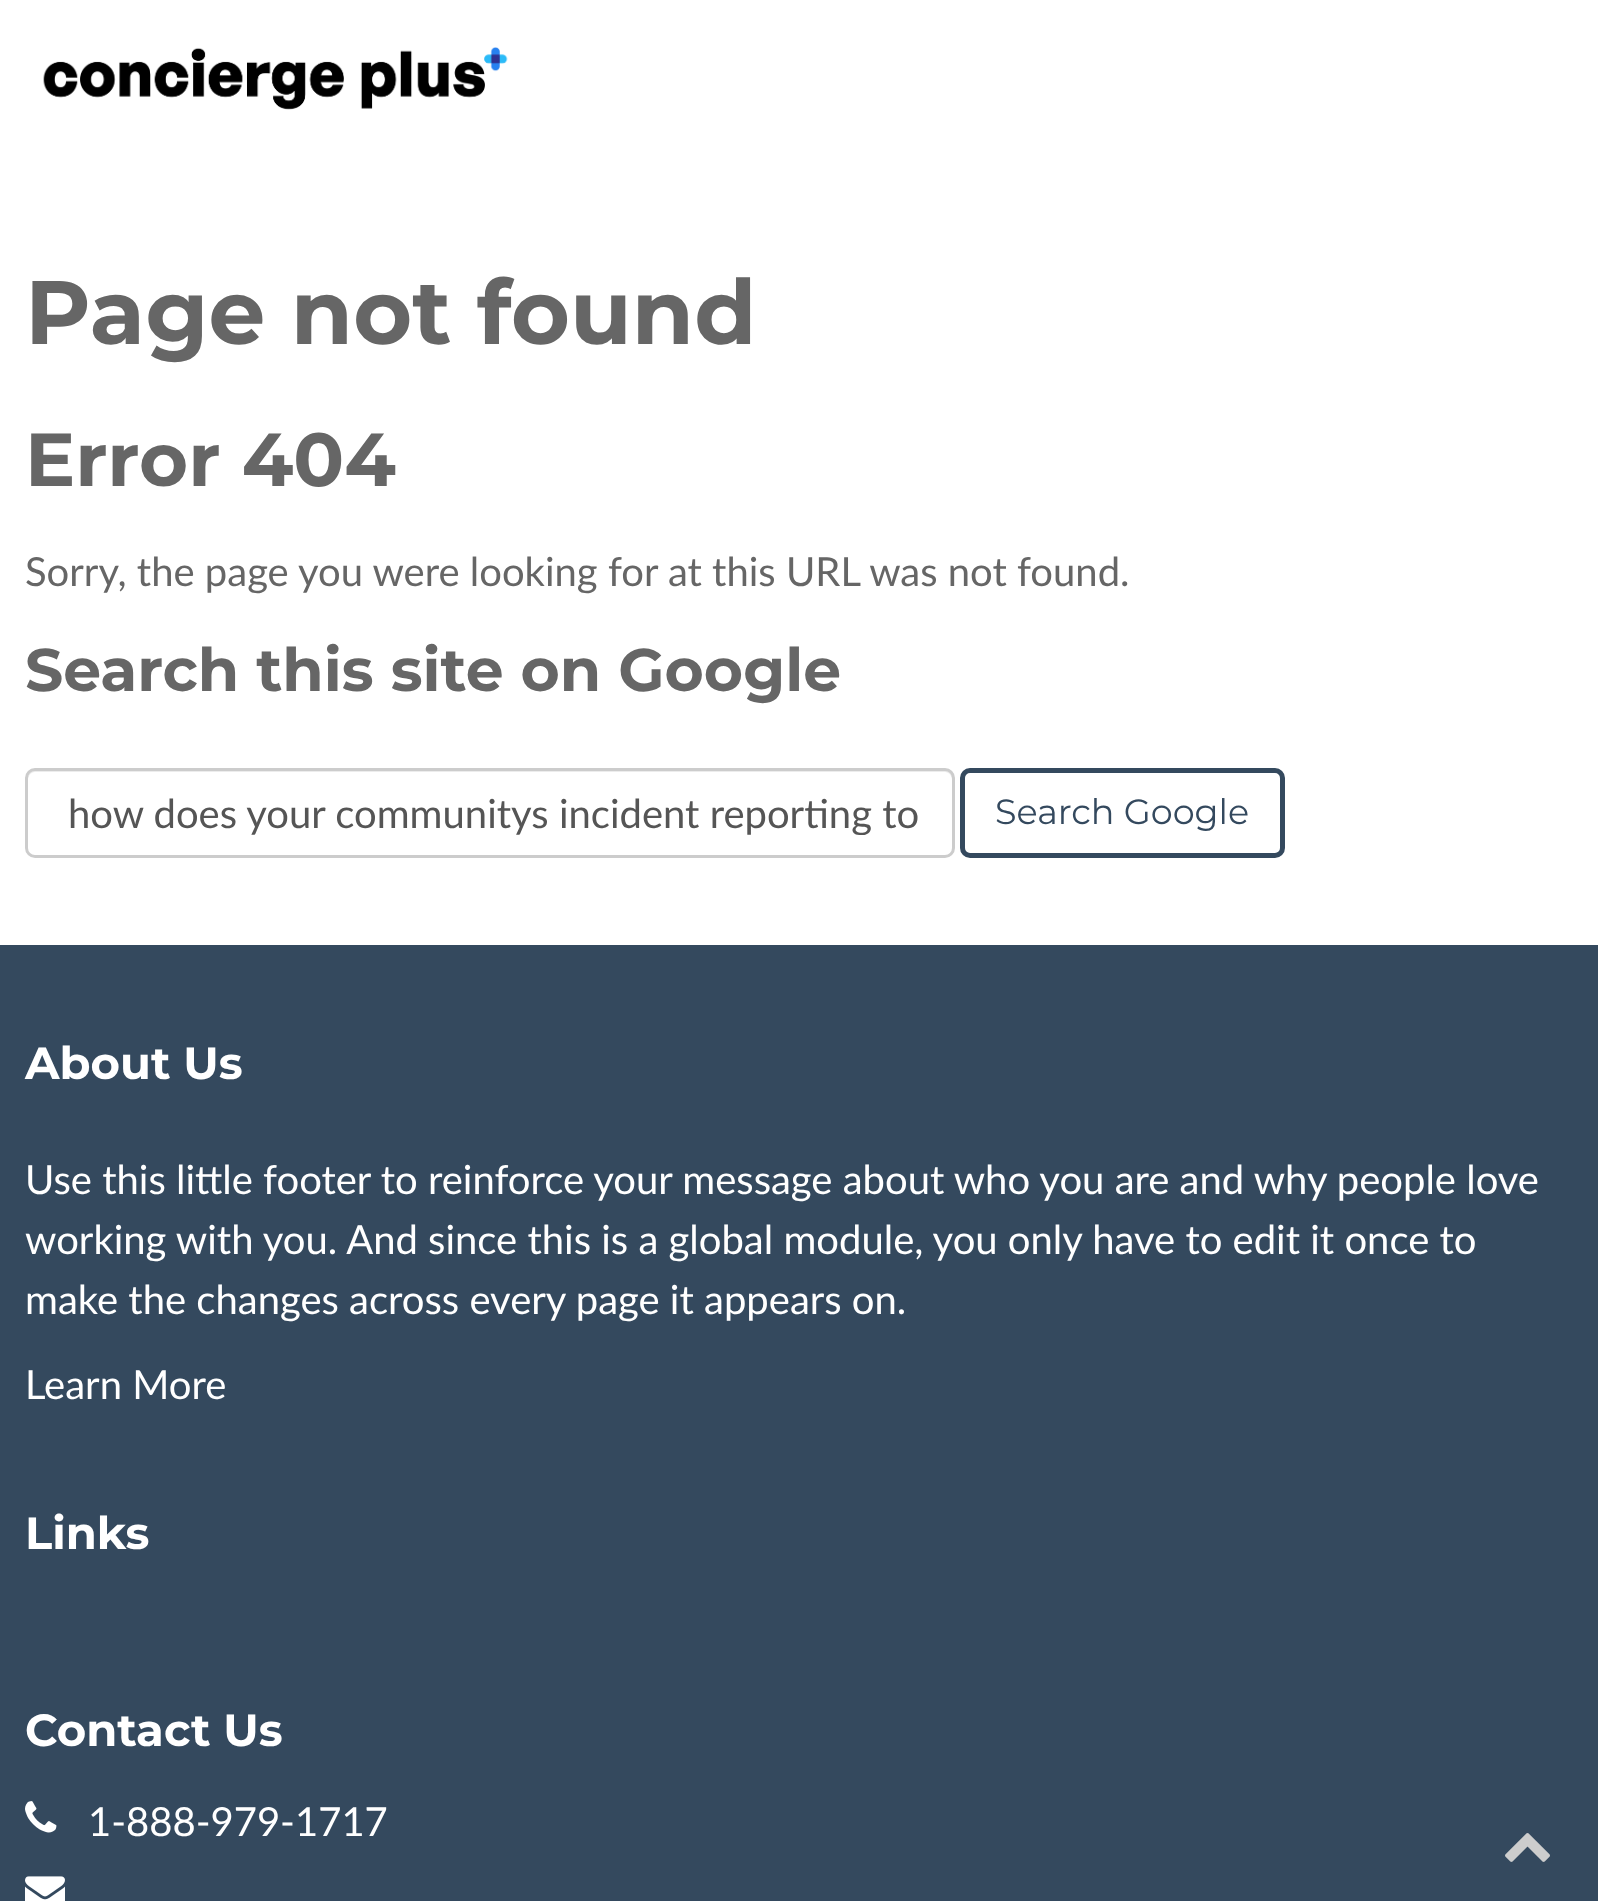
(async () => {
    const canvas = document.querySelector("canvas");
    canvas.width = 1598;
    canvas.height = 1901;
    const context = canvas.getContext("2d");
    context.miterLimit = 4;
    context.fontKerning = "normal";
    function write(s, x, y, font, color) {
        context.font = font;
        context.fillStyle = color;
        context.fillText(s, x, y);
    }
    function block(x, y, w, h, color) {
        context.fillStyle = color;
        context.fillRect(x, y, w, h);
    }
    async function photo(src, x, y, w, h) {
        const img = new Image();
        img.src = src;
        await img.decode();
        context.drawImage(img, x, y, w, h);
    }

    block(0, 0, 1598, 1901, "rgb(255, 255, 255)");
    await photo("media/1.png", 43, 47, 465, 63);
    write("Page not found", 25, 344, "bold 90px Montserrat", "rgb(102, 102, 102)");
    write("Error 404", 25, 486, "bold 75px Montserrat", "rgb(102, 102, 102)");
    write("Sorry, the page you were looking for at this URL was not found.", 25, 586, "40px Lato", "rgb(102, 102, 102)");
    write("Search this site on Google", 25, 691, "bold 60px Montserrat", "rgb(102, 102, 102)");
    context.fillStyle = "rgb(236, 236, 236)";
    context.beginPath();
    context.moveTo(35, 772);
    context.lineTo(945, 772);
    context.bezierCurveTo(949, 772, 952, 776, 952, 780);
    context.lineTo(952, 851);
    context.bezierCurveTo(953, 850, 953, 848, 953, 847);
    context.lineTo(953, 778);
    context.bezierCurveTo(953, 774, 949, 770, 945, 770);
    context.lineTo(36, 770);
    context.bezierCurveTo(32, 770, 28, 774, 28, 778);
    context.lineTo(28, 780);
    context.bezierCurveTo(28, 776, 31, 772, 35, 772);
    context.closePath();
    context.fill();
    context.beginPath();
    context.roundRect(26.5, 769.5, 927, 87, 8.5);
    context.strokeStyle = "rgb(204, 204, 204)";
    context.lineWidth = 3;
    context.stroke();
    context.save();
    context.beginPath();
    context.rect(58, 788, 865, 47);
    context.clip();
    write("how does your communitys incident reporting to", 68, 828, "40px Lato", "rgb(85, 85, 85)");
    context.restore();
    context.beginPath();
    context.roundRect(962.5, 770.5, 320, 85, 7.5);
    context.strokeStyle = "rgb(52, 73, 94)";
    context.lineWidth = 5;
    context.stroke();
    write("Search Google", 995, 824, "35px Montserrat", "rgb(52, 73, 94)");
    block(0, 945, 1598, 956, "rgb(52, 73, 94)");
    write("About Us", 25, 1079, "bold 45px Montserrat", "rgb(255, 255, 255)");
    write("Use this little footer to reinforce your message about who you are and why people love", 25, 1194, "40px Lato", "rgb(255, 255, 255)");
    write("working with you. And since this is a global module, you only have to edit it once to", 25, 1254, "40px Lato", "rgb(255, 255, 255)");
    write("make the changes across every page it appears on.", 25, 1314, "40px Lato", "rgb(255, 255, 255)");
    write("Learn More", 25, 1399, "40px Lato", "rgb(255, 255, 255)");
    write("Links", 25, 1549, "bold 45px Montserrat", "rgb(255, 255, 255)");
    write("Contact Us", 25, 1746, "bold 45px Montserrat", "rgb(255, 255, 255)");
    await photo("media/2.png", 25, 1801, 32, 32);
    write("1-888-979-1717", 88, 1836, "40px Lato", "rgb(255, 255, 255)");
    await photo("media/3.png", 25, 1876, 40, 25);
    await photo("media/4.png", 1505, 1833, 45, 29);
})();
